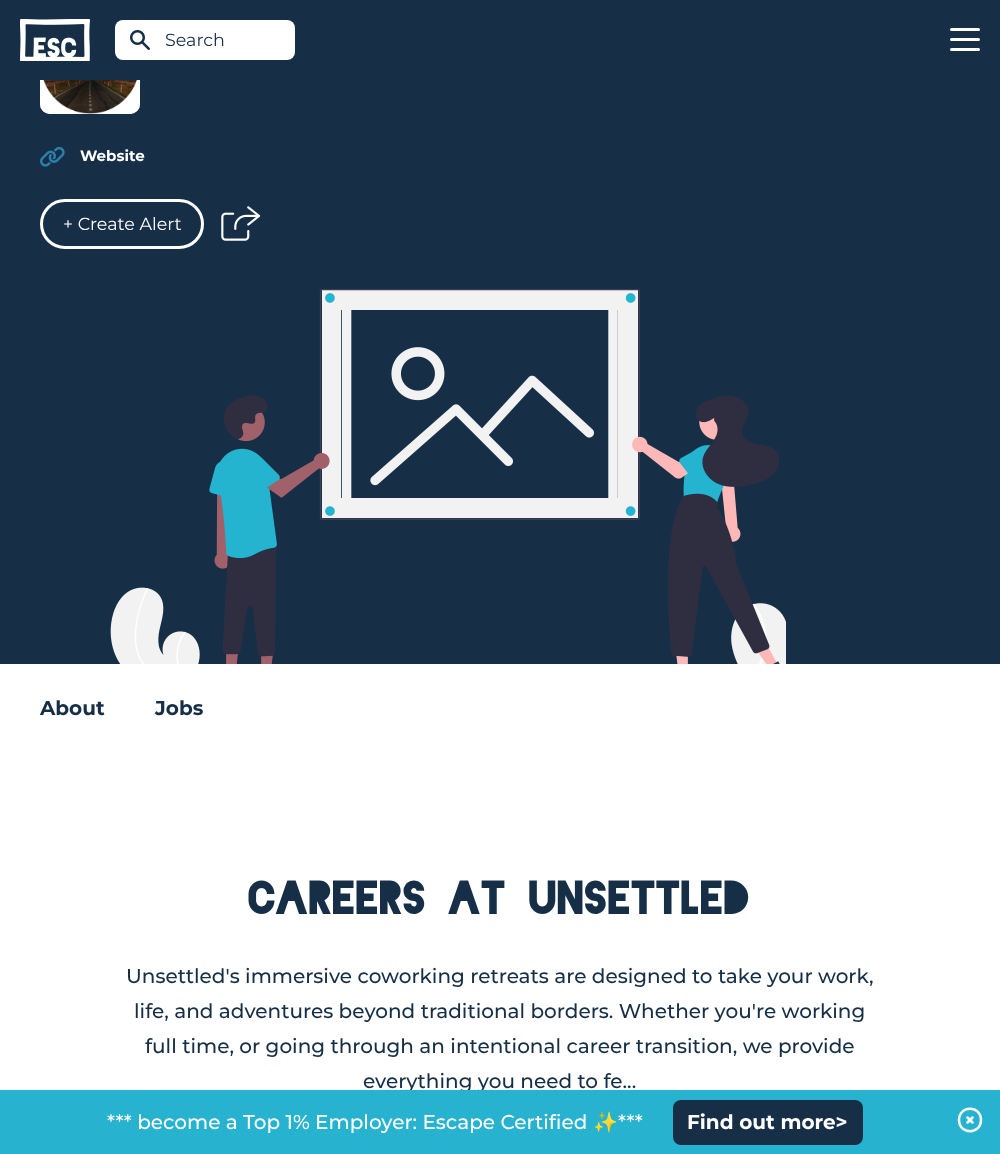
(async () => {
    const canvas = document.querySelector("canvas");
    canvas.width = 1000;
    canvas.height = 1154;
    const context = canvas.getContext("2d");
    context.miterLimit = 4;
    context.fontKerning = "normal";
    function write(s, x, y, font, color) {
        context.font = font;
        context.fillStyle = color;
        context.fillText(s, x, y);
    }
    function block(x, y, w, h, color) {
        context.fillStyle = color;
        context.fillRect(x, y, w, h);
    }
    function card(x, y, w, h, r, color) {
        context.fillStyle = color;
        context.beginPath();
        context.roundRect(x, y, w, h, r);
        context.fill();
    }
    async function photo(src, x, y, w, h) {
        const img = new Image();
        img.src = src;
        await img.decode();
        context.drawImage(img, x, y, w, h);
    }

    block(0, 0, 1000, 1154, "rgb(255, 255, 255)");
    block(0, 80, 1000, 584, "rgb(22, 47, 71)");
    card(40, 14, 100, 100, 10, "rgb(247, 247, 247)");
    block(0, 0, 1000, 80, "rgb(22, 47, 71)");
    await photo("media/1.png", 20, 19, 70, 42);
    card(115, 20, 180, 40, 8, "rgb(255, 255, 255)");
    await photo("media/2.png", 130, 30, 20, 20);
    write("Search", 165, 46, "17.5px Montserrat", "rgb(22, 47, 71)");
    card(950, 28, 30, 3, 1.5, "rgb(255, 255, 255)");
    card(950, 38, 30, 3, 1.5, "rgb(255, 255, 255)");
    card(950, 48, 30, 3, 1.5, "rgb(255, 255, 255)");
    await photo("media/3.png", 40, 80, 100, 34);
    await photo("media/4.png", 40, 146, 25, 21);
    write("Website", 80, 161, "bold 15px Montserrat", "rgb(255, 255, 255)");
    context.beginPath();
    context.roundRect(41.5, 200.5, 161, 47, 23.5);
    context.strokeStyle = "rgb(255, 255, 255)";
    context.lineWidth = 3;
    context.stroke();
    write("+ Create Alert", 63, 230, "17.5px Montserrat", "rgb(255, 255, 255)");
    await photo("media/5.png", 221, 206, 40, 35);
    await photo("media/6.png", 110, 289, 676, 375);
    block(341, 310, 277, 188, "rgb(22, 47, 71)");
    await photo("media/7.png", 341, 310, 277, 188);
    write("About", 40, 715, "bold 20px Montserrat", "rgb(22, 47, 71)");
    write("Jobs", 155, 715, "bold 20px Montserrat", "rgb(22, 47, 71)");
    write("Careers at Unsettled", 249, 914, "900 45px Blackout", "rgb(22, 47, 71)");
    write("Unsettled's immersive coworking retreats are designed to take your work,", 126, 983, "500 20px Montserrat", "rgb(22, 47, 71)");
    write("life, and adventures beyond traditional borders. Whether you're working", 134, 1018, "500 20px Montserrat", "rgb(22, 47, 71)");
    write("full time, or going through an intentional career transition, we provide", 145, 1053, "500 20px Montserrat", "rgb(22, 47, 71)");
    write("everything you need to fe...", 363, 1088, "500 20px Montserrat", "rgb(22, 47, 71)");
    block(0, 1090, 1000, 64, "rgb(39, 179, 207)");
    write("*** become a Top 1% Employer: Escape Certified", 107, 1129, "500 20px Montserrat", "rgb(255, 255, 255)");
    write("✨", 593, 1129, "20px Noto Color Emoji", "rgb(255, 255, 255)");
    write("***", 618, 1129, "500 20px Montserrat", "rgb(255, 255, 255)");
    card(673, 1100, 190, 45, 8, "rgb(22, 47, 71)");
    write("Find out more>", 687, 1129, "bold 20px Montserrat", "rgb(255, 255, 255)");
    context.beginPath();
    context.moveTo(967.5, 1122.5);
    context.lineTo(970, 1120);
    context.moveTo(970, 1120);
    context.lineTo(972.5, 1117.5);
    context.moveTo(970, 1120);
    context.lineTo(967.5, 1117.5);
    context.moveTo(970, 1120);
    context.lineTo(972.5, 1122.5);
    context.moveTo(981, 1120);
    context.bezierCurveTo(981, 1135, 959, 1135, 959, 1120);
    context.bezierCurveTo(959, 1105, 981, 1105, 981, 1120);
    context.closePath();
    context.lineWidth = 2.5;
    context.lineCap = "round";
    context.lineJoin = "round";
    context.stroke();
})();
